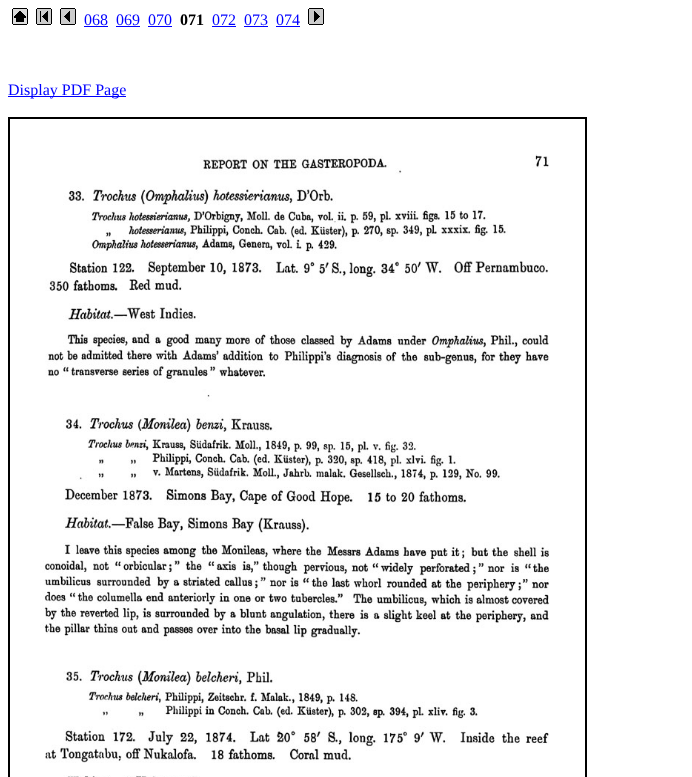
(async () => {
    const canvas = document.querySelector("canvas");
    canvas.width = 692;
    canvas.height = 777;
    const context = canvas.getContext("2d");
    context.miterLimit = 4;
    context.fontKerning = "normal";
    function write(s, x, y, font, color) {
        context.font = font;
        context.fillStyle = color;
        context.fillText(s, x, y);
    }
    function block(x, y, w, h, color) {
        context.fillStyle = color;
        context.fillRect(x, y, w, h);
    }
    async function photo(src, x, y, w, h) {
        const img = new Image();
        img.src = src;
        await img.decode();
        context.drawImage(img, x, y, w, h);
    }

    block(0, 0, 692, 777, "rgb(255, 255, 255)");
    await photo("media/1.png", 12, 8, 16, 17);
    await photo("media/2.png", 36, 8, 16, 17);
    await photo("media/3.png", 60, 8, 16, 17);
    write("068", 84, 25, "16px Liberation Serif", "rgb(0, 0, 255)");
    block(84, 26, 24, 1, "rgb(0, 0, 255)");
    write("069", 116, 25, "16px Liberation Serif", "rgb(0, 0, 255)");
    block(116, 26, 24, 1, "rgb(0, 0, 255)");
    write("070", 148, 25, "16px Liberation Serif", "rgb(0, 0, 255)");
    block(148, 26, 24, 1, "rgb(0, 0, 255)");
    write("071", 180, 25, "bold 16px Liberation Serif", "rgb(0, 0, 0)");
    write("072", 212, 25, "16px Liberation Serif", "rgb(0, 0, 255)");
    block(212, 26, 24, 1, "rgb(0, 0, 255)");
    write("073", 244, 25, "16px Liberation Serif", "rgb(0, 0, 255)");
    block(244, 26, 24, 1, "rgb(0, 0, 255)");
    write("074", 276, 25, "16px Liberation Serif", "rgb(0, 0, 255)");
    block(276, 26, 24, 1, "rgb(0, 0, 255)");
    await photo("media/4.png", 308, 8, 16, 17);
    block(8, 96, 118, 1, "rgb(0, 0, 255)");
    write("Display PDF Page", 8, 95, "16px Liberation Serif", "rgb(0, 0, 255)");
    context.strokeStyle = "rgb(0, 0, 0)";
    context.lineWidth = 2;
    context.strokeRect(9, 118, 577, 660);
    await photo("media/5.png", 40, 154, 510, 623);
})();
